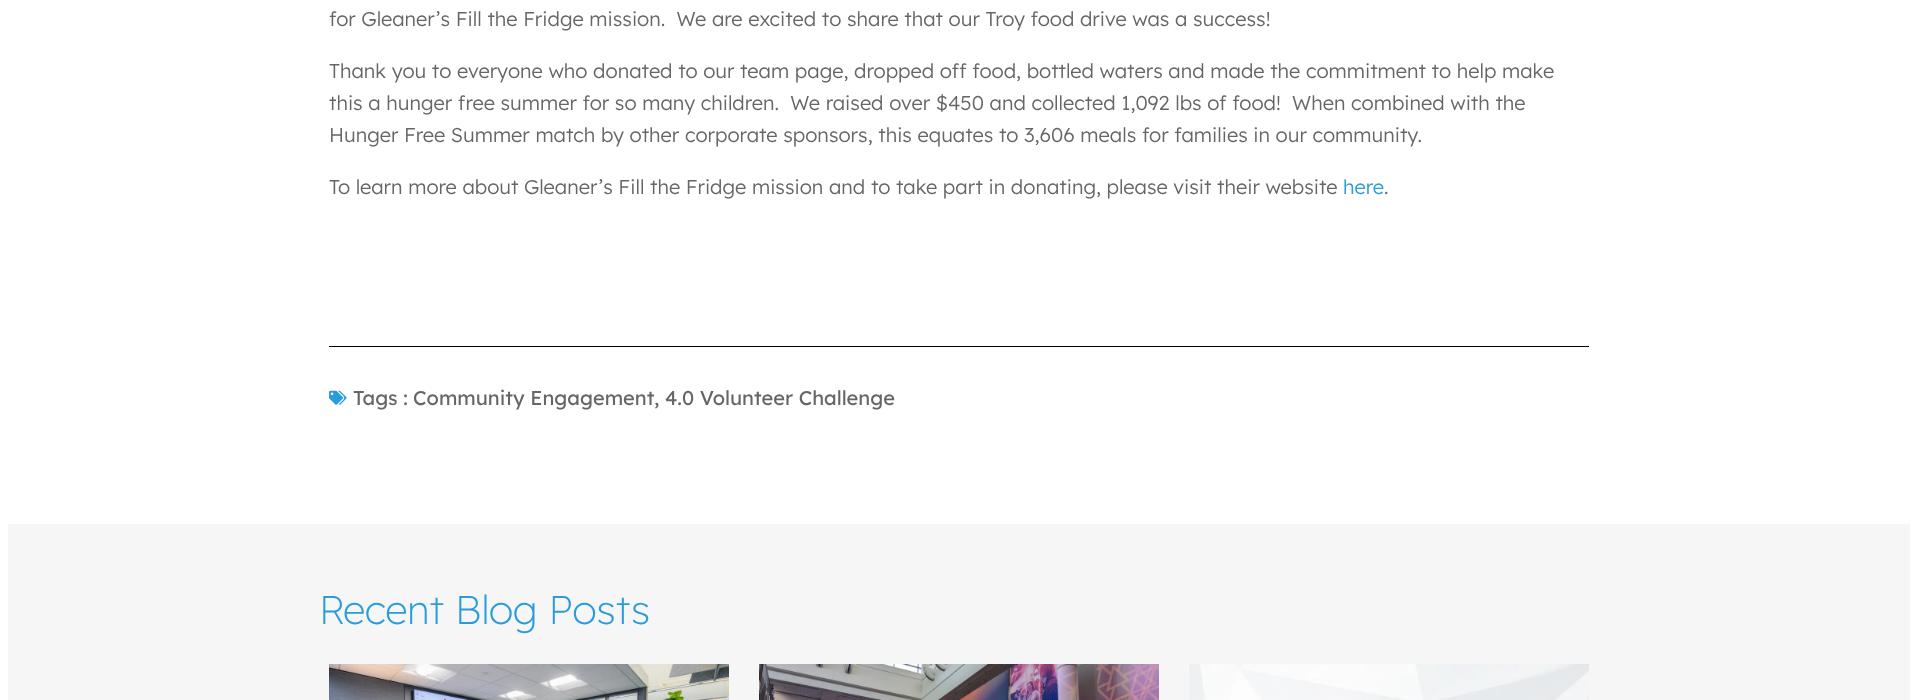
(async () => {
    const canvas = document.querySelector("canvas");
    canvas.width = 1918;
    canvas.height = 700;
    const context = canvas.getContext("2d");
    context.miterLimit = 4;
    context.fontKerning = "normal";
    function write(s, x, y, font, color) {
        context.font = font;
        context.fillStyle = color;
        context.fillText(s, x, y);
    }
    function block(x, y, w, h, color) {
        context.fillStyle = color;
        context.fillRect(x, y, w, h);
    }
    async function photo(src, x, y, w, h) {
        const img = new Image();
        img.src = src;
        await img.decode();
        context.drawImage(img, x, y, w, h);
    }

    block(0, 0, 1918, 700, "rgb(255, 255, 255)");
    write("for Gleaner’s Fill the Fridge mission.  We are excited to share that our Troy food drive was a success!", 329, 26, "300 20px Lexend", "rgb(102, 102, 102)");
    write("Thank you to everyone who donated to our team page, dropped off food, bottled waters and made the commitment to help make", 329, 78, "300 20px Lexend", "rgb(102, 102, 102)");
    write("this a hunger free summer for so many children.  We raised over $450 and collected 1,092 lbs of food!  When combined with the", 329, 110, "300 20px Lexend", "rgb(102, 102, 102)");
    write("Hunger Free Summer match by other corporate sponsors, this equates to 3,606 meals for families in our community.", 329, 142, "300 20px Lexend", "rgb(102, 102, 102)");
    write("To learn more about Gleaner’s Fill the Fridge mission and to take part in donating, please visit their website", 329, 194, "300 20px Lexend", "rgb(102, 102, 102)");
    write("here", 1343, 194, "300 20px Lexend", "rgb(42, 156, 219)");
    write(".", 1384, 194, "300 20px Lexend", "rgb(102, 102, 102)");
    block(329, 346, 1260, 1, "rgb(0, 0, 0)");
    await photo("media/1.png", 329, 390, 18, 15);
    write("Tags :", 353, 405, "20px Lexend", "rgb(102, 102, 102)");
    write("Community Engagement", 413, 405, "20px Lexend", "rgb(102, 102, 102)");
    write(", 4.0 Volunteer Challenge", 654, 405, "20px Lexend", "rgb(102, 102, 102)");
    block(8, 524, 1902, 176, "rgb(246, 246, 246)");
    write("Recent Blog Posts", 319, 624, "200 40px Lexend", "rgb(42, 156, 219)");
    await photo("media/2.png", 329, 664, 400, 36);
    await photo("media/3.png", 759, 664, 400, 36);
    await photo("media/4.png", 1189, 664, 400, 36);
})();
